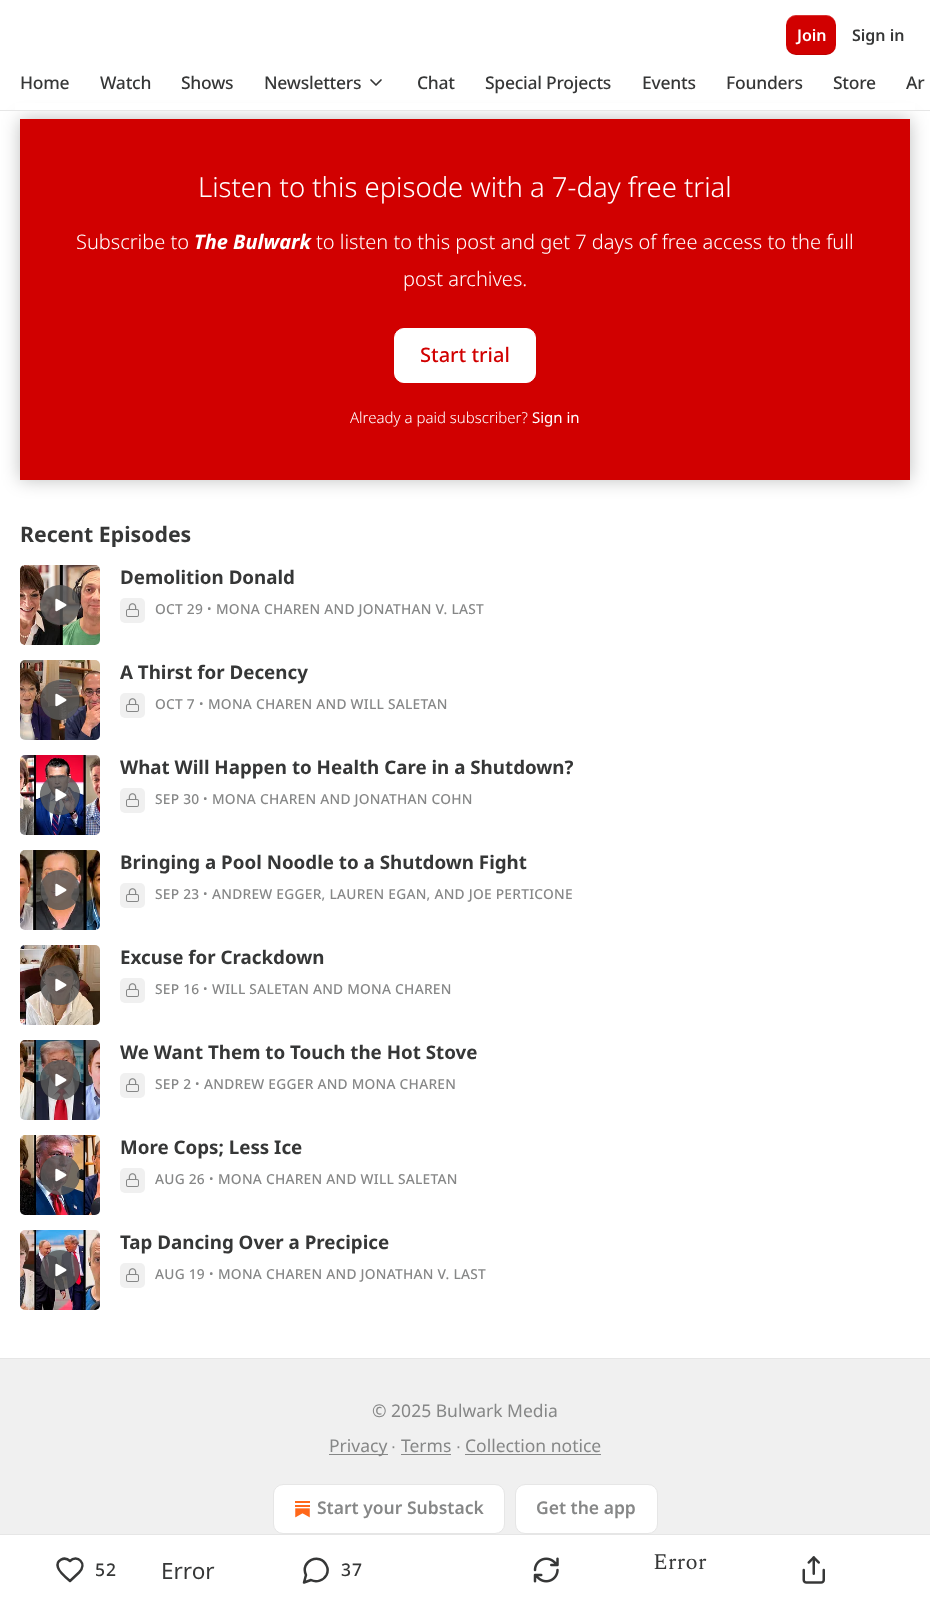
(async () => {
    const canvas = document.querySelector("canvas");
    canvas.width = 930;
    canvas.height = 1605;
    const context = canvas.getContext("2d");
    context.miterLimit = 4;
    context.fontKerning = "normal";
    function write(s, x, y, font, color) {
        context.font = font;
        context.fillStyle = color;
        context.fillText(s, x, y);
    }
    function block(x, y, w, h, color) {
        context.fillStyle = color;
        context.fillRect(x, y, w, h);
    }
    function card(x, y, w, h, r, color) {
        context.fillStyle = color;
        context.beginPath();
        context.roundRect(x, y, w, h, r);
        context.fill();
    }
    async function photo(src, x, y, w, h) {
        const img = new Image();
        img.src = src;
        await img.decode();
        context.drawImage(img, x, y, w, h);
    }

    block(0, 0, 930, 1605, "rgb(255, 255, 255)");
    block(20, 119, 890, 361, "rgb(209, 0, 0)");
    context.fillStyle = "rgb(255, 255, 255)";
    context.beginPath();
    context.roundRect(394.5, 328.5, 141, 54, 9.5);
    context.fill();
    context.strokeStyle = "rgb(255, 255, 255)";
    context.stroke();
    context.save();
    context.beginPath();
    context.moveTo(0, 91);
    context.lineTo(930, 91);
    context.lineTo(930, 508);
    context.lineTo(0, 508);
    context.closePath();
    context.moveTo(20, 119);
    context.lineTo(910, 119);
    context.lineTo(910, 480);
    context.lineTo(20, 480);
    context.closePath();
    context.clip("evenodd");
    context.fillStyle = "rgba(0, 0, 0, 0.25)";
    context.filter = "blur(9px)";
    context.beginPath();
    context.rect(20, 119, 890, 361);
    context.fill();
    context.filter = "none";
    context.restore();
    block(15, 103, 900, 7, "rgb(255, 255, 255)");
    card(786, 15, 50, 40, 10, "rgb(209, 0, 0)");
    context.fillStyle = "rgba(0, 0, 0, 0.1)";
    context.beginPath();
    context.moveTo(786, 44);
    context.bezierCurveTo(786, 58, 801, 55, 811, 55);
    context.bezierCurveTo(821, 55, 836, 58, 836, 44);
    context.bezierCurveTo(836, 57, 819, 54, 811, 54);
    context.bezierCurveTo(803, 54, 786, 57, 786, 44);
    context.closePath();
    context.fill();
    context.fillStyle = "rgba(255, 255, 255, 0.2)";
    context.beginPath();
    context.moveTo(796, 16);
    context.lineTo(826, 16);
    context.bezierCurveTo(832, 16, 836, 21, 836, 26);
    context.bezierCurveTo(836, 12, 821, 15, 811, 15);
    context.bezierCurveTo(801, 15, 786, 12, 786, 26);
    context.bezierCurveTo(786, 21, 791, 16, 796, 16);
    context.closePath();
    context.fill();
    write("Join", 797, 41, "600 16px Noto Sans", "rgb(255, 255, 255)");
    write("Sign in", 852, 41, "600 16px Noto Sans", "rgb(54, 55, 55)");
    block(0, 110, 930, 1, "rgb(230, 230, 230)");
    context.letterSpacing = "-0.25px";
    write("Home", 20, 89, "500 17.5px Noto Sans", "rgb(54, 55, 55)");
    write("Watch", 100, 89, "500 17.5px Noto Sans", "rgb(54, 55, 55)");
    write("Shows", 181, 89, "500 17.5px Noto Sans", "rgb(54, 55, 55)");
    write("Newsletters", 264, 89, "500 17.5px Noto Sans", "rgb(54, 55, 55)");
    context.beginPath();
    context.moveTo(371, 80);
    context.lineTo(376, 85);
    context.lineTo(381, 80);
    context.strokeStyle = "rgb(54, 55, 55)";
    context.lineWidth = 1.7;
    context.lineCap = "round";
    context.lineJoin = "round";
    context.stroke();
    write("Chat", 417, 89, "500 17.5px Noto Sans", "rgb(54, 55, 55)");
    write("Special Projects", 485, 89, "500 17.5px Noto Sans", "rgb(54, 55, 55)");
    write("Events", 642, 89, "500 17.5px Noto Sans", "rgb(54, 55, 55)");
    block(797, 55, 28, 1, "rgb(255, 255, 255)");
    write("Founders", 726, 89, "500 17.5px Noto Sans", "rgb(54, 55, 55)");
    write("Store", 833, 89, "500 17.5px Noto Sans", "rgb(54, 55, 55)");
    write("Ar", 906, 89, "500 17.5px Noto Sans", "rgb(54, 55, 55)");
    context.letterSpacing = "0px";
    write("Listen to this episode with a 7-day free trial", 198, 197, "300 27.5px Noto Sans", "rgb(255, 255, 255)");
    write("Subscribe to", 76, 249, "300 20px Noto Sans", "rgb(255, 255, 255)");
    write("The Bulwark", 194, 249, "italic bold 20px Noto Sans", "rgb(255, 255, 255)");
    write("to listen to this post and get 7 days of free access to the full", 316, 249, "300 20px Noto Sans", "rgb(255, 255, 255)");
    write("post archives.", 403, 286, "300 20px Noto Sans", "rgb(255, 255, 255)");
    write("Start trial", 420, 362, "500 20px Noto Sans", "rgb(209, 0, 0)");
    write("Already a paid subscriber?", 350, 423, "300 15px Noto Sans", "rgb(255, 255, 255)");
    write("Sign in", 532, 423, "15px Noto Sans", "rgb(255, 255, 255)");
    write("Recent Episodes", 20, 542, "bold 21.25px Noto Sans", "rgb(54, 55, 55)");
    await photo("media/1.png", 20, 565, 80, 80);
    context.fillStyle = "rgba(40, 40, 40, 0.75)";
    context.beginPath();
    context.arc(60, 605, 20, 0, Math.PI * 2);
    context.fill();
    context.fillStyle = "rgba(0, 0, 0, 0.1)";
    context.beginPath();
    context.moveTo(60, 585);
    context.bezierCurveTo(34, 585, 34, 625, 60, 625);
    context.bezierCurveTo(86, 625, 86, 585, 60, 585);
    context.closePath();
    context.fill();
    context.fillStyle = "rgba(255, 255, 255, 0.2)";
    context.beginPath();
    context.moveTo(60, 585);
    context.bezierCurveTo(34, 585, 34, 625, 60, 625);
    context.bezierCurveTo(86, 625, 86, 585, 60, 585);
    context.closePath();
    context.fill();
    await photo("media/2.png", 55, 598, 12, 14);
    write("Demolition Donald", 120, 584, "bold 18.75px Noto Sans", "rgb(54, 55, 55)");
    card(120, 598, 25, 25, 5, "rgb(240, 240, 240)");
    await photo("media/3.png", 126, 603, 13, 14);
    context.letterSpacing = "0.25px";
    write("OCT 29", 155, 614, "500 13.75px Noto Sans", "rgb(134, 135, 135)");
    write("•", 207, 613, "12px Noto Sans", "rgb(134, 135, 135)");
    write("MONA CHAREN AND JONATHAN V. LAST", 216, 614, "500 13.75px Noto Sans", "rgb(134, 135, 135)");
    await photo("media/4.png", 20, 660, 80, 80);
    context.fillStyle = "rgba(40, 40, 40, 0.75)";
    context.beginPath();
    context.arc(60, 700, 20, 0, Math.PI * 2);
    context.fill();
    context.fillStyle = "rgba(0, 0, 0, 0.1)";
    context.beginPath();
    context.moveTo(60, 680);
    context.bezierCurveTo(34, 680, 34, 720, 60, 720);
    context.bezierCurveTo(86, 720, 86, 680, 60, 680);
    context.closePath();
    context.fill();
    context.fillStyle = "rgba(255, 255, 255, 0.2)";
    context.beginPath();
    context.moveTo(60, 680);
    context.bezierCurveTo(34, 680, 34, 720, 60, 720);
    context.bezierCurveTo(86, 720, 86, 680, 60, 680);
    context.closePath();
    context.fill();
    await photo("media/5.png", 55, 693, 12, 14);
    context.letterSpacing = "0px";
    write("A Thirst for Decency", 120, 679, "bold 18.75px Noto Sans", "rgb(54, 55, 55)");
    card(120, 693, 25, 25, 5, "rgb(240, 240, 240)");
    await photo("media/3.png", 126, 698, 13, 14);
    context.letterSpacing = "0.25px";
    write("OCT 7", 155, 709, "500 13.75px Noto Sans", "rgb(134, 135, 135)");
    write("•", 199, 708, "12px Noto Sans", "rgb(134, 135, 135)");
    write("MONA CHAREN AND WILL SALETAN", 208, 709, "500 13.75px Noto Sans", "rgb(134, 135, 135)");
    await photo("media/6.png", 20, 755, 80, 80);
    context.fillStyle = "rgba(40, 40, 40, 0.75)";
    context.beginPath();
    context.arc(60, 795, 20, 0, Math.PI * 2);
    context.fill();
    context.fillStyle = "rgba(0, 0, 0, 0.1)";
    context.beginPath();
    context.moveTo(60, 775);
    context.bezierCurveTo(34, 775, 34, 815, 60, 815);
    context.bezierCurveTo(86, 815, 86, 775, 60, 775);
    context.closePath();
    context.fill();
    context.fillStyle = "rgba(255, 255, 255, 0.2)";
    context.beginPath();
    context.moveTo(60, 775);
    context.bezierCurveTo(34, 775, 34, 815, 60, 815);
    context.bezierCurveTo(86, 815, 86, 775, 60, 775);
    context.closePath();
    context.fill();
    await photo("media/7.png", 55, 788, 12, 14);
    context.letterSpacing = "0px";
    write("What Will Happen to Health Care in a Shutdown?", 120, 774, "bold 18.75px Noto Sans", "rgb(54, 55, 55)");
    card(120, 788, 25, 25, 5, "rgb(240, 240, 240)");
    await photo("media/3.png", 126, 793, 13, 14);
    context.letterSpacing = "0.25px";
    write("SEP 30", 155, 804, "500 13.75px Noto Sans", "rgb(134, 135, 135)");
    write("•", 203, 803, "12px Noto Sans", "rgb(134, 135, 135)");
    write("MONA CHAREN AND JONATHAN COHN", 212, 804, "500 13.75px Noto Sans", "rgb(134, 135, 135)");
    await photo("media/8.png", 20, 850, 80, 80);
    context.fillStyle = "rgba(40, 40, 40, 0.75)";
    context.beginPath();
    context.arc(60, 890, 20, 0, Math.PI * 2);
    context.fill();
    context.fillStyle = "rgba(0, 0, 0, 0.1)";
    context.beginPath();
    context.moveTo(60, 870);
    context.bezierCurveTo(34, 870, 34, 910, 60, 910);
    context.bezierCurveTo(86, 910, 86, 870, 60, 870);
    context.closePath();
    context.fill();
    context.fillStyle = "rgba(255, 255, 255, 0.2)";
    context.beginPath();
    context.moveTo(60, 870);
    context.bezierCurveTo(34, 870, 34, 910, 60, 910);
    context.bezierCurveTo(86, 910, 86, 870, 60, 870);
    context.closePath();
    context.fill();
    await photo("media/9.png", 55, 883, 12, 14);
    context.letterSpacing = "0px";
    write("Bringing a Pool Noodle to a Shutdown Fight", 120, 869, "bold 18.75px Noto Sans", "rgb(54, 55, 55)");
    card(120, 883, 25, 25, 5, "rgb(240, 240, 240)");
    await photo("media/3.png", 126, 888, 13, 14);
    context.letterSpacing = "0.25px";
    write("SEP 23", 155, 899, "500 13.75px Noto Sans", "rgb(134, 135, 135)");
    write("•", 203, 898, "12px Noto Sans", "rgb(134, 135, 135)");
    write("ANDREW EGGER, LAUREN EGAN, AND JOE PERTICONE", 212, 899, "500 13.75px Noto Sans", "rgb(134, 135, 135)");
    await photo("media/10.png", 20, 945, 80, 80);
    context.fillStyle = "rgba(40, 40, 40, 0.75)";
    context.beginPath();
    context.arc(60, 985, 20, 0, Math.PI * 2);
    context.fill();
    context.fillStyle = "rgba(0, 0, 0, 0.1)";
    context.beginPath();
    context.moveTo(60, 965);
    context.bezierCurveTo(34, 965, 34, 1005, 60, 1005);
    context.bezierCurveTo(86, 1005, 86, 965, 60, 965);
    context.closePath();
    context.fill();
    context.fillStyle = "rgba(255, 255, 255, 0.2)";
    context.beginPath();
    context.moveTo(60, 965);
    context.bezierCurveTo(34, 965, 34, 1005, 60, 1005);
    context.bezierCurveTo(86, 1005, 86, 965, 60, 965);
    context.closePath();
    context.fill();
    await photo("media/11.png", 55, 978, 12, 14);
    context.letterSpacing = "0px";
    write("Excuse for Crackdown", 120, 964, "bold 18.75px Noto Sans", "rgb(54, 55, 55)");
    card(120, 978, 25, 25, 5, "rgb(240, 240, 240)");
    await photo("media/3.png", 126, 983, 13, 14);
    context.letterSpacing = "0.25px";
    write("SEP 16", 155, 994, "500 13.75px Noto Sans", "rgb(134, 135, 135)");
    write("•", 203, 993, "12px Noto Sans", "rgb(134, 135, 135)");
    write("WILL SALETAN AND MONA CHAREN", 212, 994, "500 13.75px Noto Sans", "rgb(134, 135, 135)");
    await photo("media/12.png", 20, 1040, 80, 80);
    context.fillStyle = "rgba(40, 40, 40, 0.75)";
    context.beginPath();
    context.arc(60, 1080, 20, 0, Math.PI * 2);
    context.fill();
    context.fillStyle = "rgba(0, 0, 0, 0.1)";
    context.beginPath();
    context.moveTo(60, 1060);
    context.bezierCurveTo(34, 1060, 34, 1100, 60, 1100);
    context.bezierCurveTo(86, 1100, 86, 1060, 60, 1060);
    context.closePath();
    context.fill();
    context.fillStyle = "rgba(255, 255, 255, 0.2)";
    context.beginPath();
    context.moveTo(60, 1060);
    context.bezierCurveTo(34, 1060, 34, 1100, 60, 1100);
    context.bezierCurveTo(86, 1100, 86, 1060, 60, 1060);
    context.closePath();
    context.fill();
    await photo("media/13.png", 55, 1073, 12, 14);
    context.letterSpacing = "0px";
    write("We Want Them to Touch the Hot Stove", 120, 1059, "bold 18.75px Noto Sans", "rgb(54, 55, 55)");
    card(120, 1073, 25, 25, 5, "rgb(240, 240, 240)");
    await photo("media/3.png", 126, 1078, 13, 14);
    context.letterSpacing = "0.25px";
    write("SEP 2", 155, 1089, "500 13.75px Noto Sans", "rgb(134, 135, 135)");
    write("•", 195, 1088, "12px Noto Sans", "rgb(134, 135, 135)");
    write("ANDREW EGGER AND MONA CHAREN", 204, 1089, "500 13.75px Noto Sans", "rgb(134, 135, 135)");
    await photo("media/14.png", 20, 1135, 80, 80);
    context.fillStyle = "rgba(40, 40, 40, 0.75)";
    context.beginPath();
    context.arc(60, 1175, 20, 0, Math.PI * 2);
    context.fill();
    context.fillStyle = "rgba(0, 0, 0, 0.1)";
    context.beginPath();
    context.moveTo(60, 1155);
    context.bezierCurveTo(34, 1155, 34, 1195, 60, 1195);
    context.bezierCurveTo(86, 1195, 86, 1155, 60, 1155);
    context.closePath();
    context.fill();
    context.fillStyle = "rgba(255, 255, 255, 0.2)";
    context.beginPath();
    context.moveTo(60, 1155);
    context.bezierCurveTo(34, 1155, 34, 1195, 60, 1195);
    context.bezierCurveTo(86, 1195, 86, 1155, 60, 1155);
    context.closePath();
    context.fill();
    await photo("media/15.png", 55, 1168, 12, 14);
    context.letterSpacing = "0px";
    write("More Cops; Less Ice", 120, 1154, "bold 18.75px Noto Sans", "rgb(54, 55, 55)");
    card(120, 1168, 25, 25, 5, "rgb(240, 240, 240)");
    await photo("media/3.png", 126, 1173, 13, 14);
    context.letterSpacing = "0.25px";
    write("AUG 26", 155, 1184, "500 13.75px Noto Sans", "rgb(134, 135, 135)");
    write("•", 209, 1183, "12px Noto Sans", "rgb(134, 135, 135)");
    write("MONA CHAREN AND WILL SALETAN", 218, 1184, "500 13.75px Noto Sans", "rgb(134, 135, 135)");
    await photo("media/16.png", 20, 1230, 80, 80);
    context.fillStyle = "rgba(40, 40, 40, 0.75)";
    context.beginPath();
    context.arc(60, 1270, 20, 0, Math.PI * 2);
    context.fill();
    context.fillStyle = "rgba(0, 0, 0, 0.1)";
    context.beginPath();
    context.moveTo(60, 1250);
    context.bezierCurveTo(34, 1250, 34, 1290, 60, 1290);
    context.bezierCurveTo(86, 1290, 86, 1250, 60, 1250);
    context.closePath();
    context.fill();
    context.fillStyle = "rgba(255, 255, 255, 0.2)";
    context.beginPath();
    context.moveTo(60, 1250);
    context.bezierCurveTo(34, 1250, 34, 1290, 60, 1290);
    context.bezierCurveTo(86, 1290, 86, 1250, 60, 1250);
    context.closePath();
    context.fill();
    await photo("media/17.png", 55, 1263, 12, 14);
    context.letterSpacing = "0px";
    write("Tap Dancing Over a Precipice", 120, 1249, "bold 18.75px Noto Sans", "rgb(54, 55, 55)");
    card(120, 1263, 25, 25, 5, "rgb(240, 240, 240)");
    await photo("media/3.png", 126, 1268, 13, 14);
    context.letterSpacing = "0.25px";
    write("AUG 19", 155, 1279, "500 13.75px Noto Sans", "rgb(134, 135, 135)");
    write("•", 209, 1278, "12px Noto Sans", "rgb(134, 135, 135)");
    write("MONA CHAREN AND JONATHAN V. LAST", 218, 1279, "500 13.75px Noto Sans", "rgb(134, 135, 135)");
    block(0, 1534, 930, 1, "rgb(230, 230, 230)");
    context.beginPath();
    context.moveTo(79, 1572.5);
    context.bezierCurveTo(88, 1563.5, 77, 1554, 70, 1561);
    context.bezierCurveTo(64.5, 1556, 55.5, 1560, 58, 1567.5);
    context.bezierCurveTo(59, 1571.5, 67, 1578.5, 70, 1581);
    context.closePath();
    context.lineWidth = 2.5;
    context.stroke();
    context.letterSpacing = "1px";
    write("52", 95, 1576, "500 17.5px Noto Sans", "rgb(54, 55, 55)");
    context.letterSpacing = "0px";
    write("Error", 161, 1579, "22.5px Noto Sans", "rgb(54, 55, 55)");
    context.beginPath();
    context.moveTo(311, 1580);
    context.bezierCurveTo(316.5, 1583, 323.5, 1580.5, 326.5, 1575);
    context.bezierCurveTo(328, 1572, 328, 1568.5, 326.5, 1565.5);
    context.bezierCurveTo(320, 1551.5, 299.5, 1561.5, 306, 1575);
    context.lineTo(304, 1582.5);
    context.closePath();
    context.stroke();
    context.letterSpacing = "1px";
    write("37", 341, 1576, "500 17.5px Noto Sans", "rgb(54, 55, 55)");
    await photo("media/18.png", 533, 1557, 26, 26);
    context.letterSpacing = "0px";
    write("Error", 653, 1569, "22.5px Spectral", "rgb(54, 55, 55)");
    await photo("media/19.png", 802, 1556, 23, 28);
    block(0, 1359, 930, 175, "rgb(240, 240, 240)");
    block(0, 1358, 930, 1, "rgb(230, 230, 230)");
    write("© 2025 Bulwark Media", 372, 1417, "17.5px Noto Sans", "rgb(134, 135, 135)");
    block(329, 1454, 59, 1, "rgb(134, 135, 135)");
    write("Privacy", 329, 1452, "17.5px Noto Sans", "rgb(134, 135, 135)");
    write("∙", 391, 1452, "17.5px Liberation Sans", "rgb(134, 135, 135)");
    write("Terms", 401, 1452, "17.5px Noto Sans", "rgb(134, 135, 135)");
    block(401, 1454, 50, 1, "rgb(134, 135, 135)");
    write("∙", 456, 1452, "17.5px Liberation Sans", "rgb(134, 135, 135)");
    write("Collection notice", 465, 1452, "17.5px Noto Sans", "rgb(134, 135, 135)");
    block(465, 1454, 136, 1, "rgb(134, 135, 135)");
    context.fillStyle = "rgb(255, 255, 255)";
    context.beginPath();
    context.roundRect(273.5, 1484.5, 231, 49, 9.5);
    context.fill();
    context.strokeStyle = "rgb(230, 230, 230)";
    context.lineWidth = 1;
    context.lineJoin = "miter";
    context.stroke();
    await photo("media/20.png", 295, 1501, 15, 17);
    write("Start your Substack", 317, 1514, "600 17.5px Noto Sans", "rgb(134, 135, 135)");
    context.fillStyle = "rgb(255, 255, 255)";
    context.beginPath();
    context.roundRect(515.5, 1484.5, 142, 49, 9.5);
    context.fill();
    context.stroke();
    write("Get the app", 536, 1514, "600 17.5px Noto Sans", "rgb(134, 135, 135)");
})();
